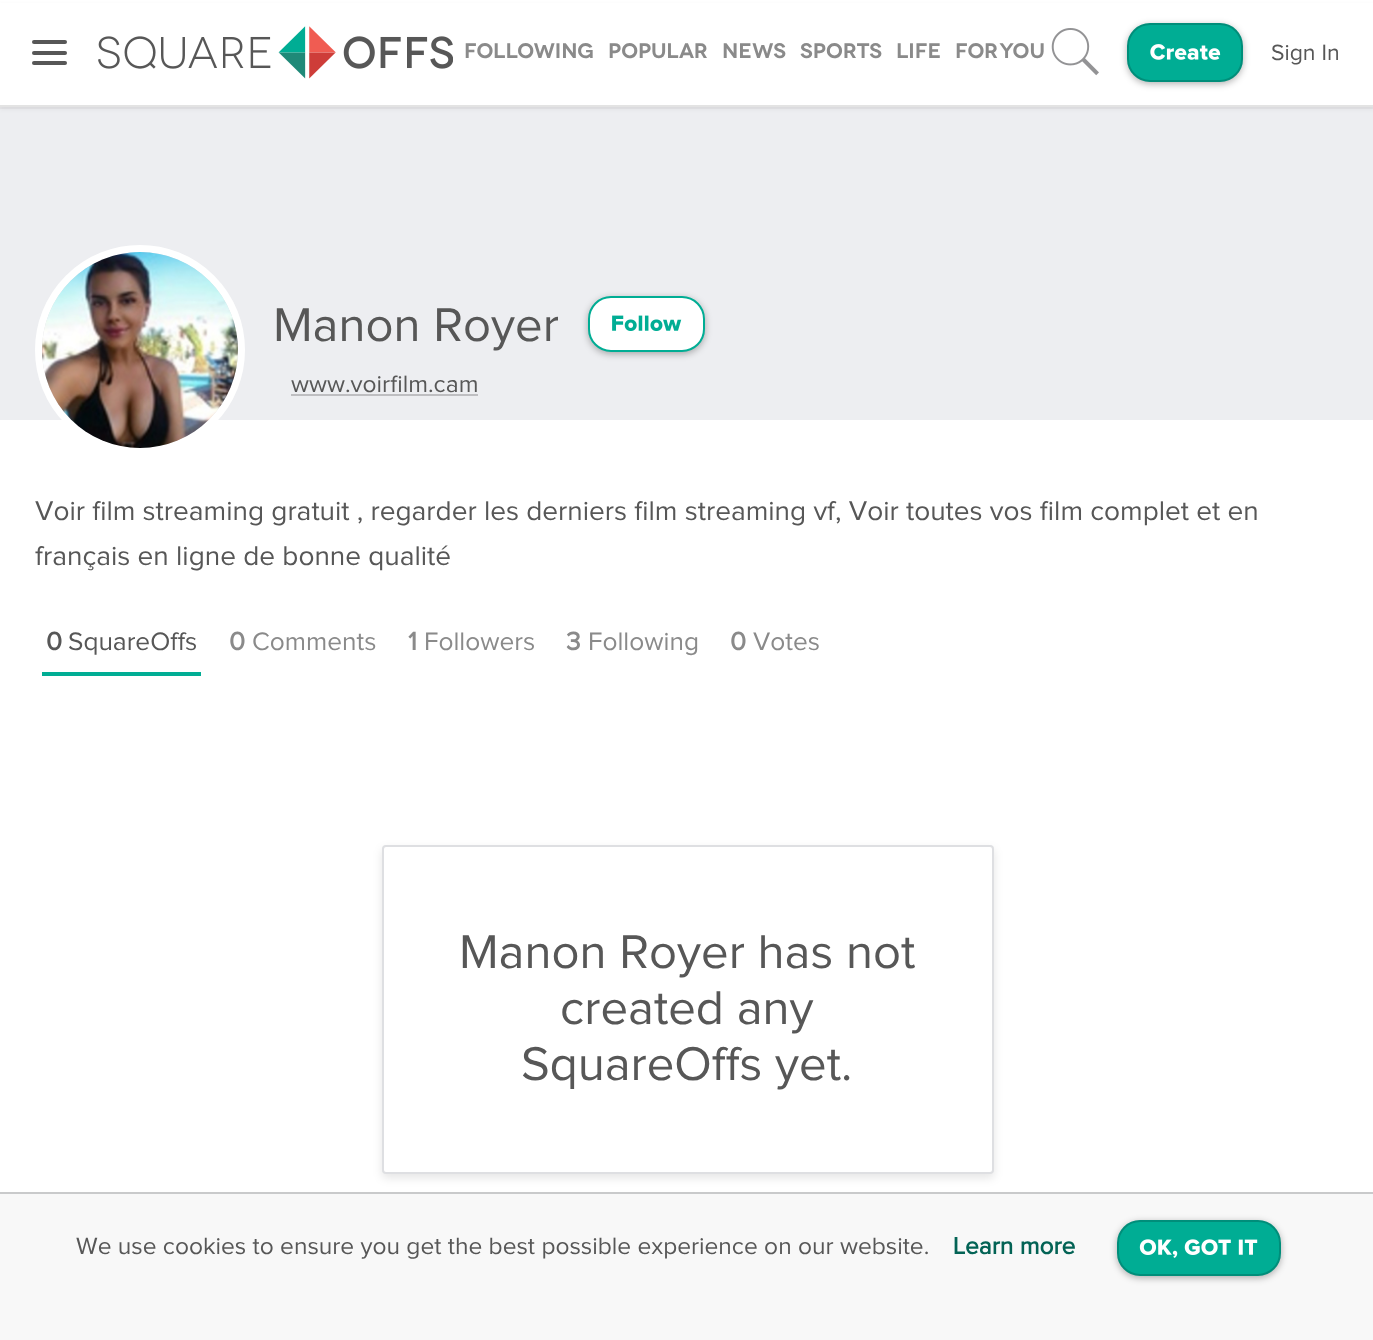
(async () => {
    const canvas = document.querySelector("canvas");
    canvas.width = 1373;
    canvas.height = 1340;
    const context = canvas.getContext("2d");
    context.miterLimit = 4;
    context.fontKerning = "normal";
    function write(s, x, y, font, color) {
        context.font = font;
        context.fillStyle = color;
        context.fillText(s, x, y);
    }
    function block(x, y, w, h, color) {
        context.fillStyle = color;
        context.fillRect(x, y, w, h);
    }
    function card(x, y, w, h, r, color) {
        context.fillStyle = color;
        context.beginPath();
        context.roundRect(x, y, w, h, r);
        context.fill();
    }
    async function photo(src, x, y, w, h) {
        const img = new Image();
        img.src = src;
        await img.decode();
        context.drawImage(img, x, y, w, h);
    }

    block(0, 0, 1373, 1340, "rgb(255, 255, 255)");
    context.fillStyle = "rgb(228, 228, 231)";
    context.beginPath();
    context.moveTo(0, 107);
    context.lineTo(0, 109);
    context.lineTo(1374, 109);
    context.lineTo(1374, 2);
    context.lineTo(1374, 107);
    context.closePath();
    context.fill();
    block(0, 109, 1373, 311, "rgb(237, 238, 241)");
    context.fillStyle = "rgba(0, 0, 0, 0.04)";
    context.filter = "blur(2px)";
    context.beginPath();
    context.rect(0, 4, 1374, 106);
    context.fill();
    context.filter = "none";
    block(0, 3, 1373, 102, "rgb(255, 255, 255)");
    card(32, 51, 35, 4, 2, "rgb(87, 87, 87)");
    card(32, 40, 35, 4, 2, "rgb(87, 87, 87)");
    card(32, 61, 35, 4, 2, "rgb(87, 87, 87)");
    block(0, 105, 1373, 2, "rgb(227, 227, 227)");
    await photo("media/1.png", 98, 26, 355, 53);
    write("Following", 464, 58, "600 21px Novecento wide", "rgb(138, 138, 138)");
    write("Popular", 608, 58, "600 21px Novecento wide", "rgb(138, 138, 138)");
    write("News", 722, 58, "600 21px Novecento wide", "rgb(138, 138, 138)");
    write("Sports", 800, 58, "600 21px Novecento wide", "rgb(138, 138, 138)");
    write("Life", 896, 58, "600 21px Novecento wide", "rgb(138, 138, 138)");
    context.wordSpacing = "-4px";
    write("For you", 955, 58, "600 21px Novecento wide", "rgb(138, 138, 138)");
    await photo("media/2.png", 1051, 28, 48, 48);
    context.fillStyle = "rgba(0, 0, 0, 0.3)";
    context.filter = "blur(3.5px)";
    context.beginPath();
    context.roundRect(1127, 25, 116, 59, 23);
    context.fill();
    context.filter = "none";
    context.fillStyle = "rgb(0, 173, 148)";
    context.beginPath();
    context.roundRect(1128, 24, 114, 57, 22);
    context.fill();
    context.strokeStyle = "rgb(0, 142, 122)";
    context.lineWidth = 2;
    context.stroke();
    await photo("media/3.png", 1150, 44, 71, 16);
    context.wordSpacing = "0px";
    write("Sign In", 1271, 60, "23px Proxima Nova", "rgb(87, 87, 87)");
    context.fillStyle = "rgb(222, 223, 226)";
    context.beginPath();
    context.arc(140, 350, 101.5, 0, Math.PI * 2);
    context.fill();
    context.strokeStyle = "rgb(255, 255, 255)";
    context.lineWidth = 7;
    context.stroke();
    await photo("media/4.png", 42, 252, 196, 196);
    write("Manon Royer", 273, 341, "49px Proxima Nova", "rgb(87, 87, 87)");
    context.fillStyle = "rgba(0, 0, 0, 0.3)";
    context.filter = "blur(3.5px)";
    context.beginPath();
    context.roundRect(588, 298, 117, 56, 23);
    context.fill();
    context.filter = "none";
    context.fillStyle = "rgb(255, 255, 255)";
    context.beginPath();
    context.roundRect(589, 297, 115, 54, 22);
    context.fill();
    context.strokeStyle = "rgb(0, 173, 148)";
    context.lineWidth = 2;
    context.stroke();
    await photo("media/5.png", 612, 315, 70, 16);
    write("www.voirfilm.cam", 291, 392, "24.5px Proxima Nova", "rgb(87, 87, 87)");
    block(291, 394, 187, 2, "rgb(190, 190, 193)");
    write("Voir film streaming gratuit , regarder les derniers film streaming vf, Voir toutes vos film complet et en", 35, 520, "28px Proxima Nova", "rgb(87, 87, 87)");
    write("français en ligne de bonne qualité", 35, 565, "28px Proxima Nova", "rgb(87, 87, 87)");
    block(42, 672, 159, 4, "rgb(0, 173, 148)");
    write("0", 46, 650, "bold 26.25px Proxima Nova", "rgb(87, 87, 87)");
    write("SquareOffs", 68, 650, "26.25px Proxima Nova", "rgb(87, 87, 87)");
    write("0", 229, 650, "bold 26.25px Proxima Nova", "rgb(138, 138, 138)");
    write("Comments", 252, 650, "26.25px Proxima Nova", "rgb(138, 138, 138)");
    write("1", 408, 650, "bold 26.25px Proxima Nova", "rgb(138, 138, 138)");
    write("Followers", 424, 650, "26.25px Proxima Nova", "rgb(138, 138, 138)");
    write("3", 566, 650, "bold 26.25px Proxima Nova", "rgb(138, 138, 138)");
    write("Following", 588, 650, "26.25px Proxima Nova", "rgb(138, 138, 138)");
    write("0", 730, 650, "bold 26.25px Proxima Nova", "rgb(138, 138, 138)");
    write("Votes", 753, 650, "26.25px Proxima Nova", "rgb(138, 138, 138)");
    context.fillStyle = "rgba(0, 0, 0, 0.1)";
    context.filter = "blur(5px)";
    context.beginPath();
    context.roundRect(382, 849, 612, 329, 4);
    context.fill();
    context.filter = "none";
    context.fillStyle = "rgb(255, 255, 255)";
    context.beginPath();
    context.roundRect(383, 846, 610, 327, 3);
    context.fill();
    context.strokeStyle = "rgb(222, 223, 226)";
    context.stroke();
    write("Manon Royer has not", 459, 968, "49px Proxima Nova", "rgb(87, 87, 87)");
    write("created any", 560, 1024, "49px Proxima Nova", "rgb(87, 87, 87)");
    write("SquareOffs yet.", 521, 1080, "49px Proxima Nova", "rgb(87, 87, 87)");
    block(0, 1194, 1373, 146, "rgb(248, 248, 248)");
    block(0, 1192, 1373, 2, "rgb(201, 202, 203)");
    write("We use cookies to ensure you get the best possible experience on our website.", 76, 1254, "24.5px Proxima Nova", "rgb(87, 87, 87)");
    write("Learn more", 953, 1254, "bold 24.5px Proxima Nova", "rgb(3, 99, 85)");
    context.fillStyle = "rgba(0, 0, 0, 0.3)";
    context.filter = "blur(3.5px)";
    context.beginPath();
    context.roundRect(1117, 1222, 164, 56, 23);
    context.fill();
    context.filter = "none";
    context.fillStyle = "rgb(0, 173, 148)";
    context.beginPath();
    context.roundRect(1118, 1221, 162, 54, 22);
    context.fill();
    context.strokeStyle = "rgb(0, 142, 122)";
    context.stroke();
    await photo("media/6.png", 1139, 1239, 119, 19);
})();
